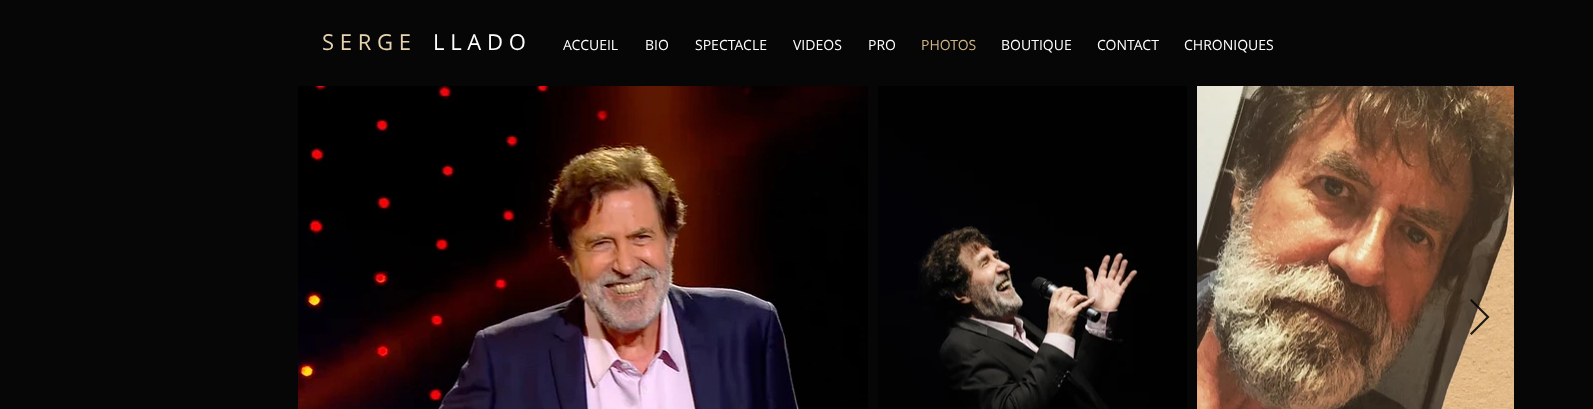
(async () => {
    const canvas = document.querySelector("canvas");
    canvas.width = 1593;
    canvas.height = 409;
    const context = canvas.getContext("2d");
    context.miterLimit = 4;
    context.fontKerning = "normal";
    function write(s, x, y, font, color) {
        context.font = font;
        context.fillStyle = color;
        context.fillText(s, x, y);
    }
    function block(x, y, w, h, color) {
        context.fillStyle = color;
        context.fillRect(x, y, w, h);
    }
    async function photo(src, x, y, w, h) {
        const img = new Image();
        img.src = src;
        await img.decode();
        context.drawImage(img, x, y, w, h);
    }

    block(0, 0, 1593, 409, "rgb(7, 6, 6)");
    write("S E R G E", 322, 50, "22px Open Sans", "rgb(231, 211, 177)");
    write("L L A D O", 433, 50, "22px Open Sans", "rgb(255, 255, 255)");
    write("ACCUEIL", 563, 50, "14px Open Sans", "rgb(255, 255, 255)");
    write("BIO", 645, 50, "14px Open Sans", "rgb(255, 255, 255)");
    write("SPECTACLE", 695, 50, "14px Open Sans", "rgb(255, 255, 255)");
    write("VIDEOS", 793, 50, "14px Open Sans", "rgb(255, 255, 255)");
    write("PRO", 868, 50, "14px Open Sans", "rgb(255, 255, 255)");
    write("PHOTOS", 921, 50, "14px Open Sans", "rgb(207, 180, 134)");
    write("BOUTIQUE", 1001, 50, "14px Open Sans", "rgb(255, 255, 255)");
    write("CONTACT", 1097, 50, "14px Open Sans", "rgb(255, 255, 255)");
    write("CHRONIQUES", 1184, 50, "14px Open Sans", "rgb(255, 255, 255)");
    await photo("media/1.png", 298, 86, 570, 323);
    await photo("media/2.png", 878, 86, 309, 323);
    await photo("media/3.png", 1197, 86, 317, 323);
    context.fillStyle = "rgba(7, 6, 6, 0.9)";
    context.beginPath();
    context.moveTo(1470, 300.5);
    context.lineTo(1471.5, 299);
    context.lineTo(1489.5, 317);
    context.lineTo(1471.5, 335);
    context.lineTo(1470, 333.5);
    context.lineTo(1486.5, 317);
    context.closePath();
    context.fill();
})();
